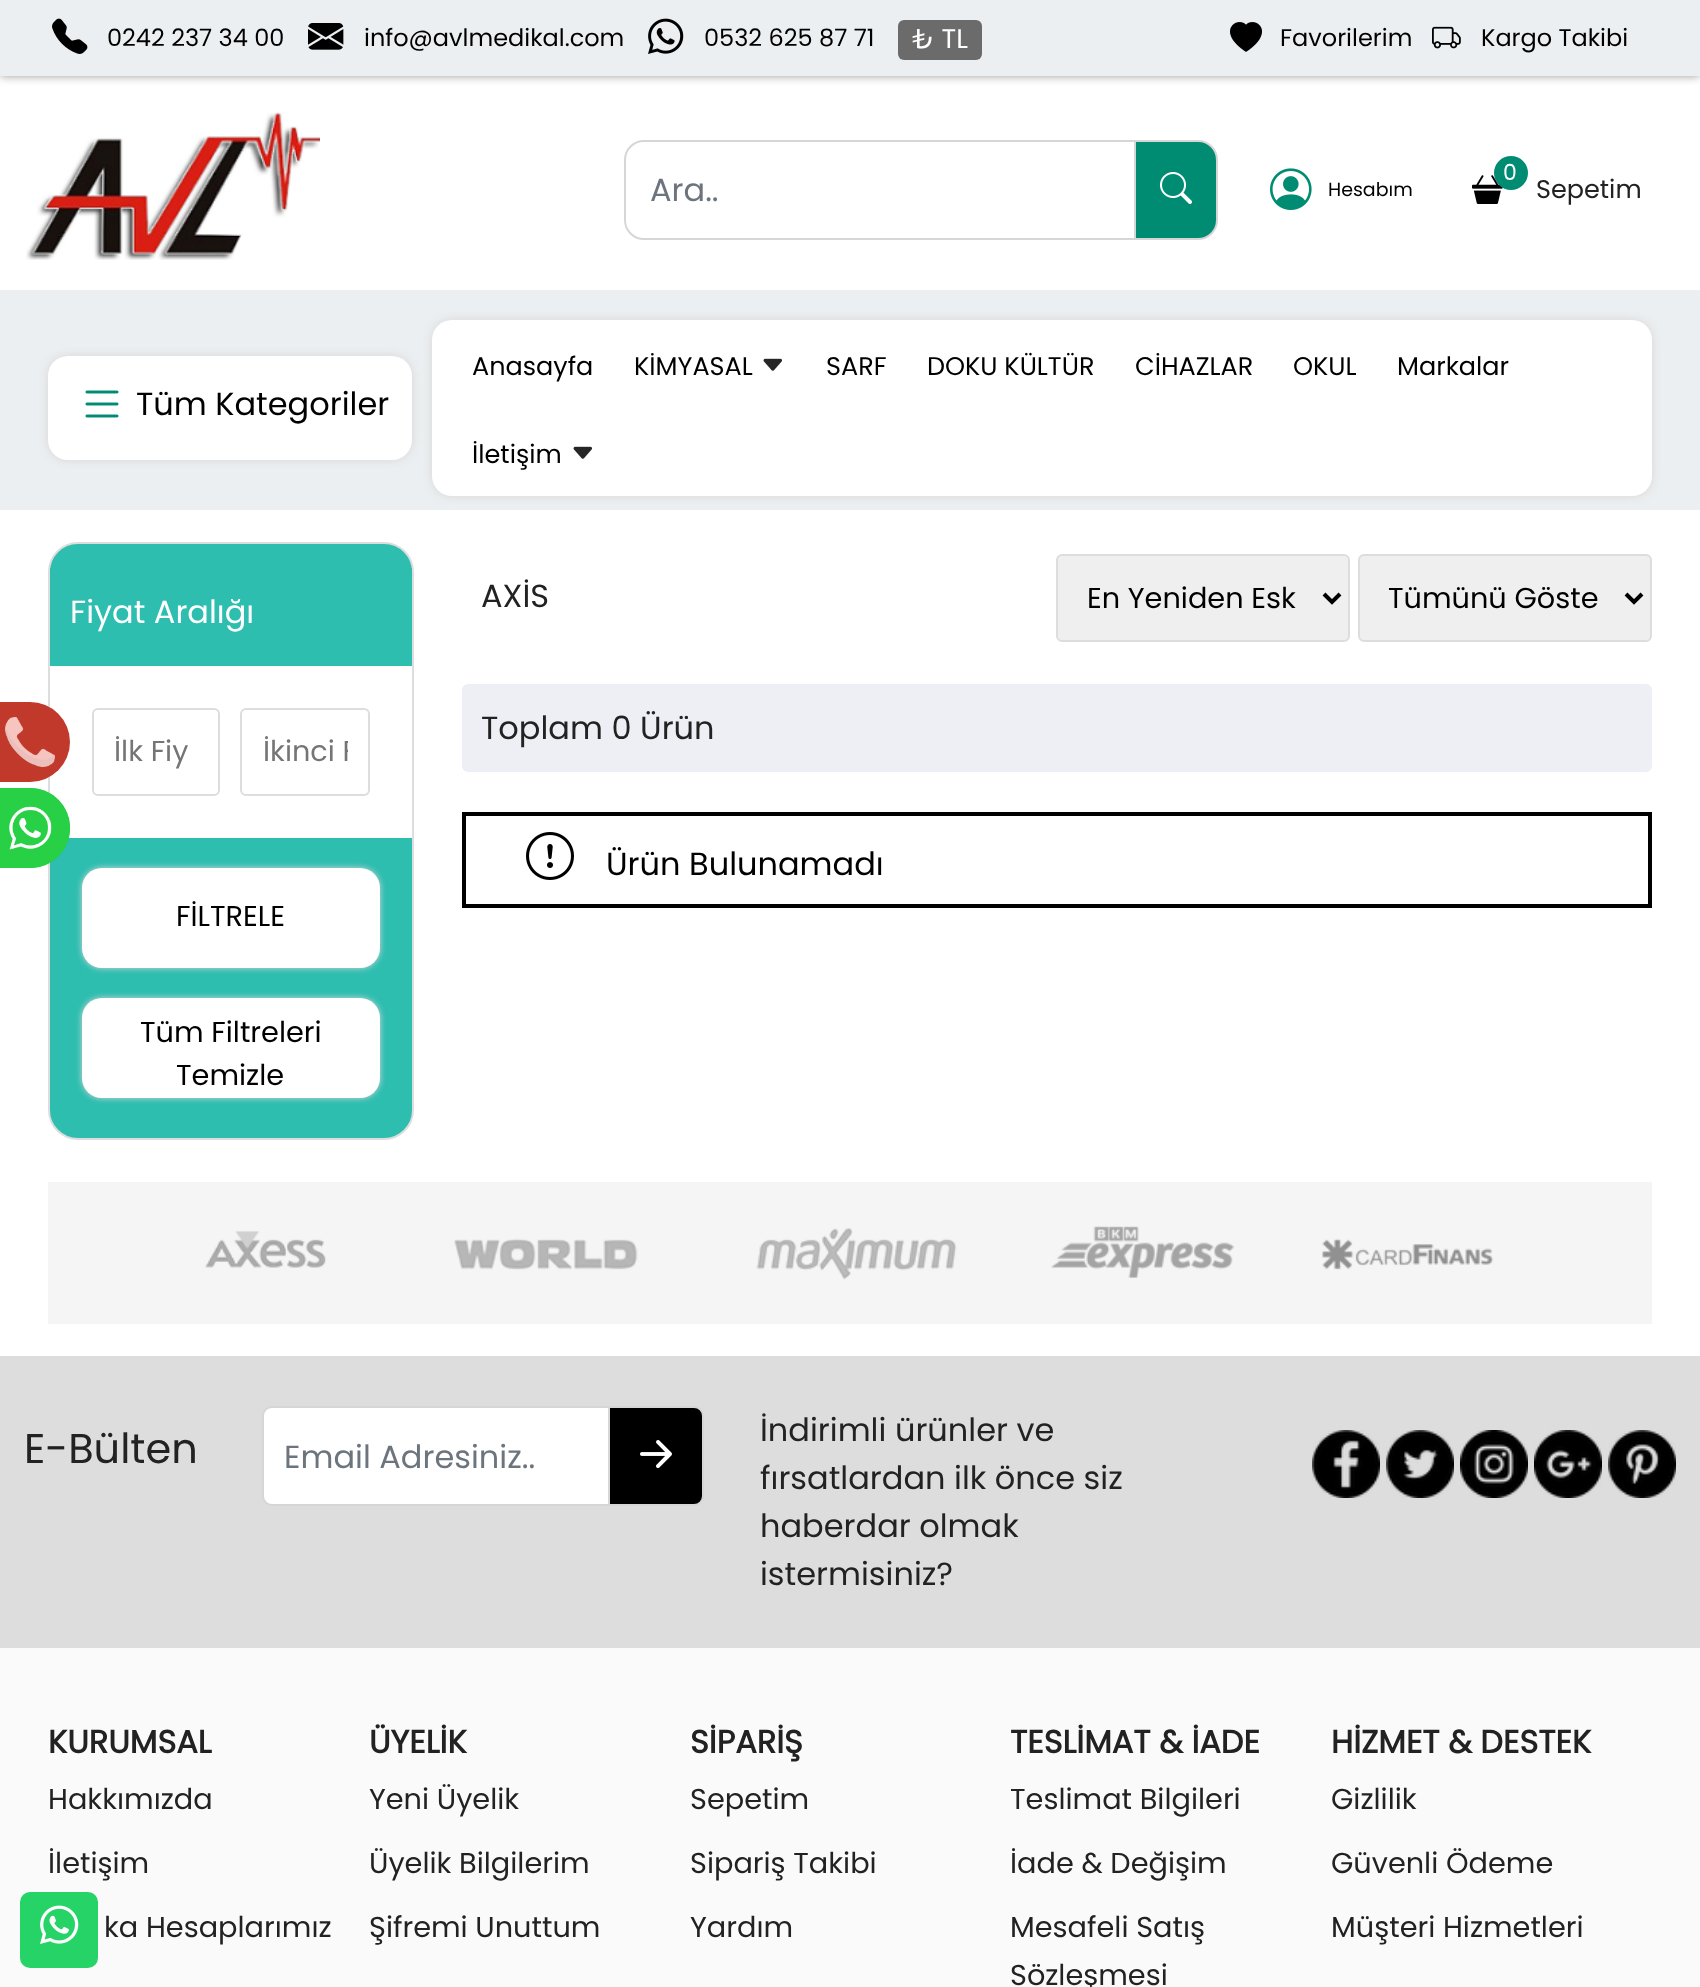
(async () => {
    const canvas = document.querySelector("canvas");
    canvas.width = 1700;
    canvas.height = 1987;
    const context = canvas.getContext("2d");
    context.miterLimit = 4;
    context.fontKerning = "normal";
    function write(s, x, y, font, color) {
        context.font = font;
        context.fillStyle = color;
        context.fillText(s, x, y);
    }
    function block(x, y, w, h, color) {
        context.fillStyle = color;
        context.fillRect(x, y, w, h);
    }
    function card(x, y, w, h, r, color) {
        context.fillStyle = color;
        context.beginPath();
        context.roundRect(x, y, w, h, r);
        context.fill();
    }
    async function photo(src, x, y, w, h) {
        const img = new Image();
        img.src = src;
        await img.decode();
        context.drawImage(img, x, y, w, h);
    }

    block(0, 0, 1700, 1987, "rgb(255, 255, 255)");
    context.fillStyle = "rgb(153, 153, 153)";
    context.filter = "blur(5px)";
    context.beginPath();
    context.rect(0, 0, 1700, 76);
    context.fill();
    context.filter = "none";
    block(0, 0, 1700, 76, "rgb(236, 239, 241)");
    await photo("media/1.png", 52, 18, 36, 36);
    write("0242 237 34 00", 107, 46, "24px Poppins", "rgb(0, 0, 0)");
    await photo("media/2.png", 308, 23, 36, 27);
    write("info@avlmedikal.com", 364, 46, "24px Poppins", "rgb(0, 0, 0)");
    await photo("media/3.png", 648, 18, 36, 36);
    write("0532 625 87 71", 704, 46, "24px Poppins", "rgb(0, 0, 0)");
    card(898, 20, 84, 40, 6, "rgb(107, 107, 107)");
    write("₺ TL", 912, 48, "27px Poppins", "rgb(255, 255, 255)");
    await photo("media/4.png", 1230, 22, 32, 30);
    write("Favorilerim", 1280, 46, "24px Poppins", "rgb(0, 0, 0)");
    await photo("media/5.png", 1432, 26, 29, 23);
    write("Kargo Takibi", 1481, 46, "24px Poppins", "rgb(0, 0, 0)");
    await photo("media/6.png", 26, 112, 294, 148);
    context.beginPath();
    context.roundRect(625, 141, 510, 98, [19, 0, 0, 19]);
    context.strokeStyle = "rgb(214, 214, 214)";
    context.lineWidth = 2;
    context.stroke();
    write("Ara..", 650, 201, "32px Poppins", "rgb(108, 117, 125)");
    context.fillStyle = "rgb(0, 140, 114)";
    context.beginPath();
    context.roundRect(1135, 141, 82, 98, [0, 19, 19, 0]);
    context.fill();
    context.stroke();
    await photo("media/7.png", 1160, 172, 32, 32);
    await photo("media/8.png", 1270, 168, 42, 42);
    write("Hesabım", 1328, 196, "19px Poppins", "rgb(0, 0, 0)");
    await photo("media/9.png", 1472, 175, 31, 29);
    context.fillStyle = "rgb(0, 140, 114)";
    context.beginPath();
    context.arc(1511, 173, 17, 0, Math.PI * 2);
    context.fill();
    write("0", 1503, 180, "22px Poppins", "rgb(255, 255, 255)");
    write("Sepetim", 1536, 198, "25.5px Poppins", "rgb(34, 34, 34)");
    block(0, 290, 1700, 220, "rgb(236, 239, 241)");
    context.fillStyle = "rgb(214, 214, 214)";
    context.filter = "blur(5px)";
    context.beginPath();
    context.roundRect(48, 356, 364, 104, 20);
    context.fill();
    context.filter = "none";
    card(48, 356, 364, 104, 20, "rgb(255, 255, 255)");
    await photo("media/10.png", 85, 390, 34, 28);
    write("Tüm Kategoriler", 136, 415, "32px Poppins", "rgb(0, 0, 0)");
    context.fillStyle = "rgb(214, 214, 214)";
    context.filter = "blur(5px)";
    context.beginPath();
    context.roundRect(432, 320, 1220, 176, 20);
    context.fill();
    context.filter = "none";
    card(432, 320, 1220, 176, 20, "rgb(255, 255, 255)");
    write("Anasayfa", 472, 375, "25.5px Poppins", "rgb(0, 0, 0)");
    write("KİMYASAL", 634, 375, "25.5px Poppins", "rgb(0, 0, 0)");
    await photo("media/11.png", 763, 358, 19, 13);
    write("SARF", 826, 375, "25.5px Poppins", "rgb(0, 0, 0)");
    write("DOKU KÜLTÜR", 927, 375, "25.5px Poppins", "rgb(0, 0, 0)");
    write("CİHAZLAR", 1135, 375, "25.5px Poppins", "rgb(0, 0, 0)");
    write("OKUL", 1293, 375, "25.5px Poppins", "rgb(0, 0, 0)");
    write("Markalar", 1397, 375, "25.5px Poppins", "rgb(0, 0, 0)");
    write("İletişim", 472, 463, "25.5px Poppins", "rgb(0, 0, 0)");
    await photo("media/11.png", 573, 446, 19, 13);
    context.fillStyle = "rgb(45, 190, 176)";
    context.beginPath();
    context.roundRect(49, 543, 364, 596, 29);
    context.fill();
    context.strokeStyle = "rgb(221, 221, 221)";
    context.stroke();
    block(50, 666, 362, 172, "rgb(255, 255, 255)");
    context.fillStyle = "rgb(192, 57, 43)";
    context.beginPath();
    context.roundRect(0, 702, 70, 80, [0, 40, 40, 0]);
    context.fill();
    await photo("media/12.png", 5, 717, 50, 50);
    context.fillStyle = "rgb(39, 208, 69)";
    context.beginPath();
    context.roundRect(0, 788, 70, 80, [0, 40, 40, 0]);
    context.fill();
    await photo("media/13.png", 9, 788, 61, 80);
    block(50, 568, 362, 4, "rgb(45, 190, 176)");
    write("Fiyat Aralığı", 70, 623, "32px Poppins", "rgb(255, 255, 255)");
    context.beginPath();
    context.roundRect(93, 709, 126, 86, 5);
    context.stroke();
    write("İlk Fiy", 114, 761, "28.75px Poppins", "rgb(117, 117, 117)");
    context.beginPath();
    context.roundRect(241, 709, 128, 86, 5);
    context.stroke();
    context.save();
    context.beginPath();
    context.rect(262, 730, 86, 42);
    context.clip();
    write("İkinci F", 263, 761, "28.75px Poppins", "rgb(117, 117, 117)");
    context.restore();
    context.fillStyle = "rgb(214, 214, 214)";
    context.filter = "blur(3px)";
    context.beginPath();
    context.roundRect(82, 868, 298, 100, 20);
    context.fill();
    context.filter = "none";
    card(82, 868, 298, 100, 20, "rgb(255, 255, 255)");
    write("FİLTRELE", 176, 926, "28.75px Poppins", "rgb(0, 0, 0)");
    context.fillStyle = "rgb(214, 214, 214)";
    context.filter = "blur(3px)";
    context.beginPath();
    context.roundRect(82, 998, 298, 100, 20);
    context.fill();
    context.filter = "none";
    card(82, 998, 298, 100, 20, "rgb(255, 255, 255)");
    write("Tüm Filtreleri", 140, 1042, "28.75px Poppins", "rgb(0, 0, 0)");
    write("Temizle", 176, 1085, "28.75px Poppins", "rgb(0, 0, 0)");
    write("AXİS", 481, 607, "32px Poppins", "rgb(34, 34, 34)");
    context.fillStyle = "rgb(239, 239, 239)";
    context.beginPath();
    context.roundRect(1057, 555, 292, 86, 5);
    context.fill();
    context.stroke();
    context.beginPath();
    context.moveTo(1324, 594);
    context.lineTo(1332, 602);
    context.lineTo(1340, 594);
    context.strokeStyle = "rgb(0, 0, 0)";
    context.lineWidth = 4;
    context.stroke();
    write("En Yeniden Esk", 1087, 608, "28.75px Poppins", "rgb(0, 0, 0)");
    context.fillStyle = "rgb(239, 239, 239)";
    context.beginPath();
    context.roundRect(1359, 555, 292, 86, 5);
    context.fill();
    context.strokeStyle = "rgb(221, 221, 221)";
    context.lineWidth = 2;
    context.stroke();
    context.beginPath();
    context.moveTo(1626, 594);
    context.lineTo(1634, 602);
    context.lineTo(1642, 594);
    context.strokeStyle = "rgb(0, 0, 0)";
    context.lineWidth = 4;
    context.stroke();
    write("Tümünü Göste", 1388, 608, "28.75px Poppins", "rgb(0, 0, 0)");
    card(462, 684, 1190, 88, 6, "rgb(238, 239, 244)");
    write("Toplam 0 Ürün", 481, 739, "32px Poppins", "rgb(34, 34, 34)");
    context.strokeRect(464, 814, 1186, 92);
    await photo("media/14.png", 526, 832, 48, 48);
    write("Ürün Bulunamadı", 606, 875, "32px Poppins", "rgb(0, 0, 0)");
    await photo("media/15.png", 48, 1182, 1604, 142);
    block(0, 1356, 1700, 292, "rgb(221, 221, 221)");
    write("E-Bülten", 24, 1463, "41.5px Poppins", "rgb(34, 34, 34)");
    context.fillStyle = "rgb(255, 255, 255)";
    context.beginPath();
    context.roundRect(263, 1407, 346, 98, [9, 0, 0, 9]);
    context.fill();
    context.strokeStyle = "rgb(214, 214, 214)";
    context.lineWidth = 2;
    context.stroke();
    write("Email Adresiniz..", 284, 1468, "32px Poppins", "rgb(108, 117, 125)");
    context.fillStyle = "rgb(0, 0, 0)";
    context.beginPath();
    context.roundRect(609, 1407, 94, 98, [0, 9, 9, 0]);
    context.fill();
    context.stroke();
    await photo("media/16.png", 640, 1440, 32, 28);
    write("İndirimli ürünler ve", 760, 1441, "32px Poppins", "rgb(34, 34, 34)");
    write("fırsatlardan ilk önce siz", 760, 1489, "32px Poppins", "rgb(34, 34, 34)");
    write("haberdar olmak", 760, 1537, "32px Poppins", "rgb(34, 34, 34)");
    write("istermisiniz?", 760, 1585, "32px Poppins", "rgb(34, 34, 34)");
    await photo("media/17.png", 1312, 1430, 68, 68);
    await photo("media/18.png", 1386, 1430, 68, 68);
    await photo("media/19.png", 1460, 1430, 68, 68);
    await photo("media/20.png", 1534, 1430, 68, 68);
    await photo("media/21.png", 1608, 1430, 68, 68);
    block(0, 1648, 1700, 339, "rgb(250, 250, 250)");
    write("KURUMSAL", 48, 1753, "bold 32px Poppins", "rgb(34, 34, 34)");
    write("Hakkımızda", 48, 1809, "28.75px Poppins", "rgb(34, 34, 34)");
    write("İletişim", 48, 1873, "28.75px Poppins", "rgb(34, 34, 34)");
    write("ka Hesaplarımız", 104, 1937, "28.75px Poppins", "rgb(34, 34, 34)");
    write("ÜYELİK", 369, 1753, "bold 32px Poppins", "rgb(34, 34, 34)");
    write("Yeni Üyelik", 369, 1809, "28.75px Poppins", "rgb(34, 34, 34)");
    write("Üyelik Bilgilerim", 369, 1873, "28.75px Poppins", "rgb(34, 34, 34)");
    write("Şifremi Unuttum", 369, 1937, "28.75px Poppins", "rgb(34, 34, 34)");
    write("SİPARİŞ", 690, 1753, "bold 32px Poppins", "rgb(34, 34, 34)");
    write("Sepetim", 690, 1809, "28.75px Poppins", "rgb(34, 34, 34)");
    write("Sipariş Takibi", 690, 1873, "28.75px Poppins", "rgb(34, 34, 34)");
    write("Yardım", 690, 1937, "28.75px Poppins", "rgb(34, 34, 34)");
    write("TESLİMAT & İADE", 1010, 1753, "bold 32px Poppins", "rgb(34, 34, 34)");
    write("Teslimat Bilgileri", 1010, 1809, "28.75px Poppins", "rgb(34, 34, 34)");
    write("İade & Değişim", 1010, 1873, "28.75px Poppins", "rgb(34, 34, 34)");
    write("Mesafeli Satış", 1010, 1937, "28.75px Poppins", "rgb(34, 34, 34)");
    write("Sözleşmesi", 1010, 1985, "28.75px Poppins", "rgb(34, 34, 34)");
    write("HİZMET & DESTEK", 1331, 1753, "bold 32px Poppins", "rgb(34, 34, 34)");
    write("Gizlilik", 1331, 1809, "28.75px Poppins", "rgb(34, 34, 34)");
    write("Güvenli Ödeme", 1331, 1873, "28.75px Poppins", "rgb(34, 34, 34)");
    write("Müşteri Hizmetleri", 1331, 1937, "28.75px Poppins", "rgb(34, 34, 34)");
    card(20, 1892, 78, 76, 10, "rgb(37, 211, 102)");
    await photo("media/22.png", 40, 1905, 39, 39);
})();
